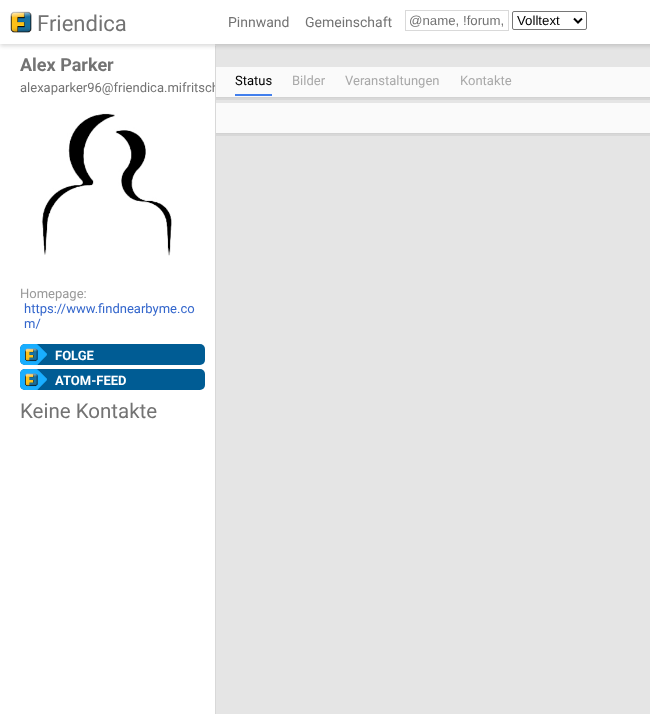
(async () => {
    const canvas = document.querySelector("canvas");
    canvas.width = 650;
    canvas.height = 714;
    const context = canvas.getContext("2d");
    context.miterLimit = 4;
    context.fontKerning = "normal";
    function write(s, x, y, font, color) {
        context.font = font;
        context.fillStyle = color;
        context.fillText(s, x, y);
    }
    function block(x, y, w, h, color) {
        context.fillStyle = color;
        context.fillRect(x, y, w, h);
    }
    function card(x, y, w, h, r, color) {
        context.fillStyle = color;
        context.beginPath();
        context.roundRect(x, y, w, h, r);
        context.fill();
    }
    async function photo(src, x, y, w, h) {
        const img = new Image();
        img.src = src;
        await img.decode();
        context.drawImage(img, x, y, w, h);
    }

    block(0, 0, 650, 714, "rgb(229, 229, 229)");
    context.fillStyle = "rgb(216, 216, 216)";
    context.beginPath();
    context.moveTo(171, 98);
    context.lineTo(171, 100);
    context.lineTo(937, 100);
    context.lineTo(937, 69);
    context.lineTo(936, 69);
    context.lineTo(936, 98);
    context.closePath();
    context.fill();
    context.beginPath();
    context.moveTo(171, 134);
    context.lineTo(171, 136);
    context.lineTo(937, 136);
    context.lineTo(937, 105);
    context.lineTo(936, 105);
    context.lineTo(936, 134);
    context.closePath();
    context.fill();
    context.beginPath();
    context.moveTo(1, 714);
    context.lineTo(1, 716);
    context.lineTo(216, 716);
    context.lineTo(216, 46);
    context.lineTo(215, 46);
    context.lineTo(215, 714);
    context.closePath();
    context.fill();
    block(0, 44, 215, 670, "rgb(255, 255, 255)");
    context.fillStyle = "rgba(0, 0, 0, 0.15)";
    context.filter = "blur(2px)";
    context.beginPath();
    context.rect(0, 2, 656, 44);
    context.fill();
    context.filter = "none";
    block(0, 0, 650, 44, "rgb(255, 255, 255)");
    await photo("media/1.png", 10, 11, 22, 22);
    write("Friendica", 37, 31, "22px Roboto", "rgb(115, 115, 115)");
    write("Pinnwand", 228, 27, "14px Roboto", "rgb(115, 115, 115)");
    write("Gemeinschaft", 305, 27, "14px Roboto", "rgb(115, 115, 115)");
    context.strokeStyle = "rgb(217, 217, 217)";
    context.strokeRect(405.5, 10.5, 103, 20);
    write("@name, !forum,", 409, 25, "13.25px Liberation Sans", "rgb(115, 115, 115)");
    context.beginPath();
    context.roundRect(512.5, 11.5, 74, 18, 1.5);
    context.strokeStyle = "rgb(118, 118, 118)";
    context.stroke();
    context.beginPath();
    context.moveTo(574, 18.5);
    context.lineTo(578, 22.5);
    context.lineTo(582, 18.5);
    context.strokeStyle = "rgb(0, 0, 0)";
    context.lineWidth = 2;
    context.stroke();
    write("Volltext", 517, 25, "13.25px Liberation Sans", "rgb(0, 0, 0)");
    write("Alex Parker", 20, 71, "bold 18px Roboto", "rgb(115, 115, 115)");
    context.save();
    context.beginPath();
    context.rect(0, 44, 215, 670);
    context.clip();
    write("alexaparker96@friendica.mifritsch", 20, 92, "13px Roboto", "rgb(115, 115, 115)");
    context.restore();
    await photo("media/2.png", 41, 113, 131, 143);
    write("Homepage:", 20, 298, "13px Roboto", "rgb(153, 153, 153)");
    write("https://www.findnearbyme.co", 24, 313, "13px Roboto", "rgb(51, 102, 204)");
    write("m/", 24, 328, "13px Roboto", "rgb(51, 102, 204)");
    card(20, 344, 185, 21, 5, "rgb(0, 92, 148)");
    await photo("media/3.png", 20, 344, 27, 21);
    write("FOLGE", 55, 360, "bold 13px Roboto", "rgb(255, 255, 255)");
    card(20, 369, 185, 21, 5, "rgb(0, 92, 148)");
    await photo("media/3.png", 20, 369, 27, 21);
    write("ATOM-FEED", 55, 385, "bold 13px Roboto", "rgb(255, 255, 255)");
    write("Keine Kontakte", 20, 418, "20.5px Roboto", "rgb(115, 115, 115)");
    block(216, 67, 434, 30, "rgb(250, 250, 250)");
    block(216, 97, 434, 1, "rgb(210, 210, 210)");
    write("Status", 235, 85, "13px Roboto", "rgb(0, 0, 0)");
    block(235, 94, 37, 2, "rgb(66, 127, 237)");
    write("Bilder", 292, 85, "13px Roboto", "rgb(169, 169, 169)");
    write("Veranstaltungen", 345, 85, "13px Roboto", "rgb(169, 169, 169)");
    write("Kontakte", 460, 85, "13px Roboto", "rgb(169, 169, 169)");
    block(216, 103, 434, 30, "rgb(250, 250, 250)");
    block(216, 133, 434, 1, "rgb(210, 210, 210)");
})();
